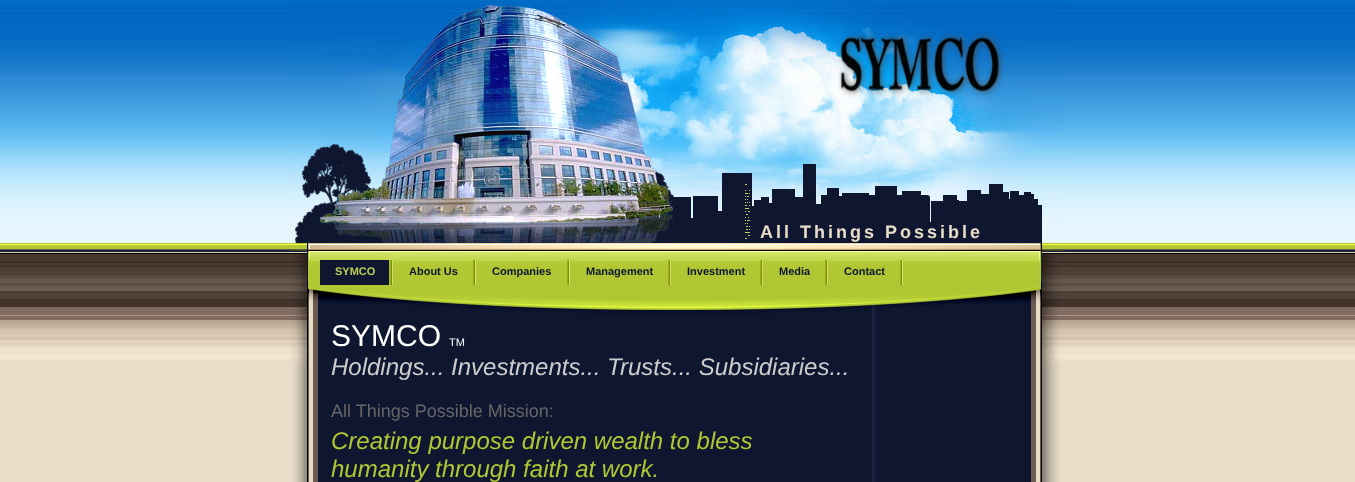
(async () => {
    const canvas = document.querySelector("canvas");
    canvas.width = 1355;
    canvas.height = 482;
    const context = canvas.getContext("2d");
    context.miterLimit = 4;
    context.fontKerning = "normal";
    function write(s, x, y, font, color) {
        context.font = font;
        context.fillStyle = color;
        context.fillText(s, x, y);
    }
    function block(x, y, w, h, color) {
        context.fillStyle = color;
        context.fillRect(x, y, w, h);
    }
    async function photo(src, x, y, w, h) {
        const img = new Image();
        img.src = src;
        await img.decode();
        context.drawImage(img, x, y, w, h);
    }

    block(0, 0, 1355, 482, "rgb(233, 221, 201)");
    await photo("media/1.png", 0, 0, 1355, 360);
    await photo("media/2.png", 292, 365, 768, 117);
    await photo("media/3.png", 290, 0, 775, 243);
    await photo("media/4.png", 308, 0, 376, 243);
    await photo("media/5.png", 838, 32, 167, 66);
    await photo("media/6.png", 745, 184, 5, 55);
    context.letterSpacing = "3px";
    write("All Things Possible", 760, 238, "bold 18px Liberation Sans", "rgb(233, 221, 201)");
    await photo("media/7.png", 290, 243, 775, 122);
    await photo("media/8.png", 320, 260, 73, 25);
    context.letterSpacing = "0px";
    write("SYMCO", 335, 275, "bold 11px Liberation Sans", "rgb(190, 208, 88)");
    await photo("media/9.png", 473, 260, 3, 25);
    write("About Us", 409, 275, "bold 11px Liberation Sans", "rgb(13, 22, 46)");
    await photo("media/9.png", 567, 260, 3, 25);
    write("Companies", 492, 275, "bold 11px Liberation Sans", "rgb(13, 22, 46)");
    await photo("media/10.png", 668, 260, 3, 25);
    write("Management", 586, 275, "bold 11px Liberation Sans", "rgb(13, 22, 46)");
    await photo("media/10.png", 760, 260, 3, 25);
    write("Investment", 687, 275, "bold 11px Liberation Sans", "rgb(13, 22, 46)");
    await photo("media/10.png", 825, 260, 3, 25);
    write("Media", 779, 275, "bold 11px Liberation Sans", "rgb(13, 22, 46)");
    await photo("media/9.png", 900, 260, 3, 25);
    write("Contact", 844, 275, "bold 11px Liberation Sans", "rgb(13, 22, 46)");
    write("SYMCO", 331, 346, "30px Liberation Sans", "rgb(255, 255, 255)");
    write("TM", 449, 346, "11px Liberation Sans", "rgb(255, 255, 255)");
    write("Holdings... Investments... Trusts... Subsidiaries...", 331, 375, "italic 24px Liberation Sans", "rgb(204, 204, 204)");
    write("All Things Possible Mission:", 331, 417, "18px Liberation Sans", "rgb(102, 102, 102)");
    write("Creating purpose driven wealth to bless", 331, 449, "italic 24px Liberation Sans", "rgb(176, 198, 51)");
    write("humanity through faith at work.", 331, 477, "italic 24px Liberation Sans", "rgb(176, 198, 51)");
})();
